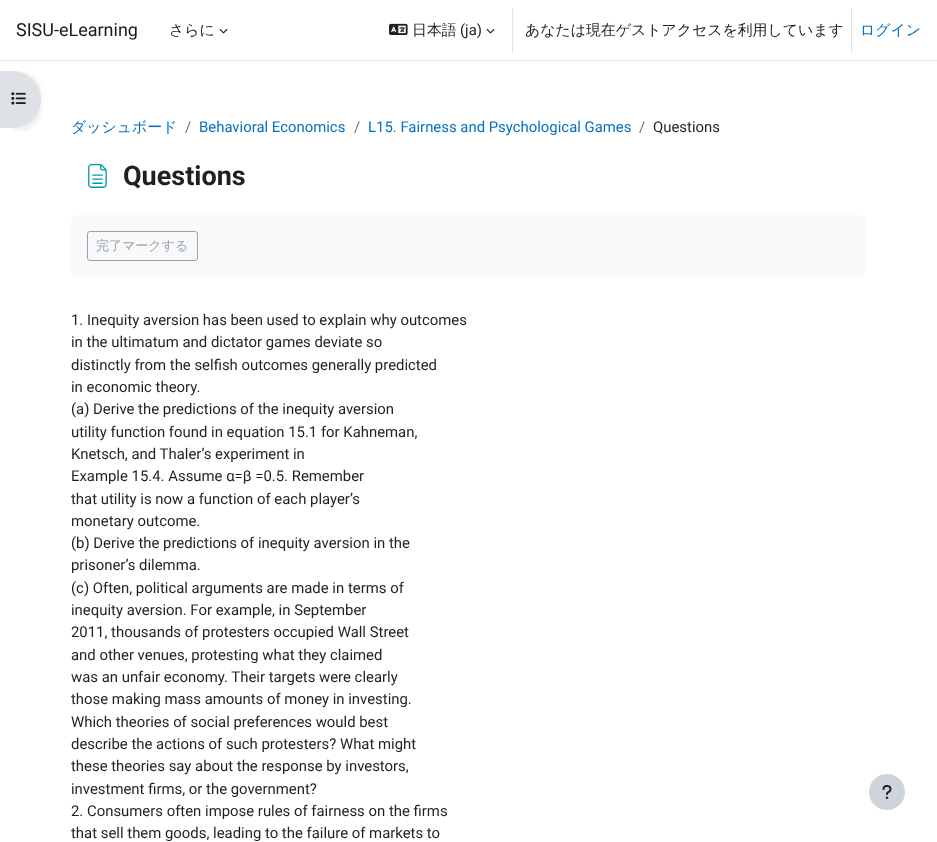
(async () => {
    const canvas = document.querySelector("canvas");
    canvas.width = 937;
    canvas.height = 842;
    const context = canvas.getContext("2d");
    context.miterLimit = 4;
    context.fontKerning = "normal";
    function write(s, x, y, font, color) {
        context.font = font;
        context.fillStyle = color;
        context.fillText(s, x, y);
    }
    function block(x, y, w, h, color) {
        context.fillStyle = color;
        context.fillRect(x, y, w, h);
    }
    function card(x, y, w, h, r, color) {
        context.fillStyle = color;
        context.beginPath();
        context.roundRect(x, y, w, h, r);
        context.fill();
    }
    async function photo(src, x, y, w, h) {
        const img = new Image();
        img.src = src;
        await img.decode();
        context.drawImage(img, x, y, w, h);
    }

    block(0, 0, 937, 842, "rgb(255, 255, 255)");
    block(0, 60, 937, 1, "rgb(222, 226, 230)");
    write("SISU-eLearning", 16, 36, "18px Roboto", "rgb(26, 26, 26)");
    write("さらに", 169, 35, "500 14.9px WenQuanYi Zen Hei", "rgb(29, 33, 37)");
    await photo("media/1.png", 219, 29, 9, 5);
    await photo("media/2.png", 389, 23, 19, 12);
    write("日本語", 412, 35, "500 14.9px WenQuanYi Zen Hei", "rgb(29, 33, 37)");
    write("(ja)", 460, 35, "14.9px Roboto", "rgb(29, 33, 37)");
    await photo("media/1.png", 486, 29, 9, 5);
    block(512, 8, 1, 45, "rgb(222, 226, 230)");
    write("あなたは現在ゲストアクセスを利用しています", 525, 35, "500 14.9px WenQuanYi Zen Hei", "rgb(29, 33, 37)");
    block(851, 8, 1, 45, "rgb(222, 226, 230)");
    write("ログイン", 860, 35, "500 14.9px WenQuanYi Zen Hei", "rgb(4, 112, 193)");
    context.fillStyle = "rgba(0, 0, 0, 0.07)";
    context.filter = "blur(2px)";
    context.beginPath();
    context.roundRect(0, 73, 41, 57, 28);
    context.fill();
    context.filter = "none";
    context.fillStyle = "rgb(222, 226, 230)";
    context.beginPath();
    context.roundRect(0, 71, 41, 57, [0, 28, 28, 0]);
    context.fill();
    await photo("media/3.png", 11, 92, 15, 13);
    write("ダッシュボード", 71, 132, "500 14.9px WenQuanYi Zen Hei", "rgb(4, 112, 193)");
    write("/", 185, 132, "14.9px Roboto", "rgb(106, 115, 123)");
    write("Behavioral Economics", 199, 132, "14.9px Roboto", "rgb(4, 112, 193)");
    write("/", 354, 132, "14.9px Roboto", "rgb(106, 115, 123)");
    write("L15. Fairness and Psychological Games", 368, 132, "14.9px Roboto", "rgb(4, 112, 193)");
    write("/", 639, 132, "14.9px Roboto", "rgb(106, 115, 123)");
    write("Questions", 653, 132, "14.9px Roboto", "rgb(29, 33, 37)");
    await photo("media/4.png", 88, 164, 19, 24);
    write("Questions", 123, 185, "bold 27px Roboto", "rgb(29, 33, 37)");
    card(71, 215, 795, 62, 8, "rgb(248, 249, 250)");
    context.beginPath();
    context.roundRect(87.5, 231.5, 110, 29, 2.5);
    context.strokeStyle = "rgb(156, 162, 167)";
    context.stroke();
    write("完了マークする", 96, 250, "500 13px WenQuanYi Zen Hei", "rgb(156, 162, 167)");
    write("1. Inequity aversion has been used to explain why outcomes", 71, 325, "14.9px Roboto", "rgb(29, 33, 37)");
    write("in the ultimatum and dictator games deviate so", 71, 347, "14.9px Roboto", "rgb(29, 33, 37)");
    write("distinctly from the selfish outcomes generally predicted", 71, 370, "14.9px Roboto", "rgb(29, 33, 37)");
    write("in economic theory.", 71, 392, "14.9px Roboto", "rgb(29, 33, 37)");
    write("(a) Derive the predictions of the inequity aversion", 71, 414, "14.9px Roboto", "rgb(29, 33, 37)");
    write("utility function found in equation 15.1 for Kahneman,", 71, 437, "14.9px Roboto", "rgb(29, 33, 37)");
    write("Knetsch, and Thaler’s experiment in", 71, 459, "14.9px Roboto", "rgb(29, 33, 37)");
    write("Example 15.4. Assume α=β =0.5. Remember", 71, 481, "14.9px Roboto", "rgb(29, 33, 37)");
    write("that utility is now a function of each player’s", 71, 504, "14.9px Roboto", "rgb(29, 33, 37)");
    write("monetary outcome.", 71, 526, "14.9px Roboto", "rgb(29, 33, 37)");
    write("(b) Derive the predictions of inequity aversion in the", 71, 548, "14.9px Roboto", "rgb(29, 33, 37)");
    write("prisoner’s dilemma.", 71, 570, "14.9px Roboto", "rgb(29, 33, 37)");
    write("(c) Often, political arguments are made in terms of", 71, 593, "14.9px Roboto", "rgb(29, 33, 37)");
    write("inequity aversion. For example, in September", 71, 615, "14.9px Roboto", "rgb(29, 33, 37)");
    write("2011, thousands of protesters occupied Wall Street", 71, 637, "14.9px Roboto", "rgb(29, 33, 37)");
    write("and other venues, protesting what they claimed", 71, 660, "14.9px Roboto", "rgb(29, 33, 37)");
    write("was an unfair economy. Their targets were clearly", 71, 682, "14.9px Roboto", "rgb(29, 33, 37)");
    write("those making mass amounts of money in investing.", 71, 704, "14.9px Roboto", "rgb(29, 33, 37)");
    write("Which theories of social preferences would best", 71, 727, "14.9px Roboto", "rgb(29, 33, 37)");
    write("describe the actions of such protesters? What might", 71, 749, "14.9px Roboto", "rgb(29, 33, 37)");
    write("these theories say about the response by investors,", 71, 771, "14.9px Roboto", "rgb(29, 33, 37)");
    write("investment firms, or the government?", 71, 794, "14.9px Roboto", "rgb(29, 33, 37)");
    write("2. Consumers often impose rules of fairness on the firms", 71, 816, "14.9px Roboto", "rgb(29, 33, 37)");
    write("that sell them goods, leading to the failure of markets to", 71, 838, "14.9px Roboto", "rgb(29, 33, 37)");
    context.fillStyle = "rgb(206, 212, 218)";
    context.beginPath();
    context.arc(887, 792, 18, 0, Math.PI * 2);
    context.fill();
    await photo("media/5.png", 882, 785, 10, 14);
})();
